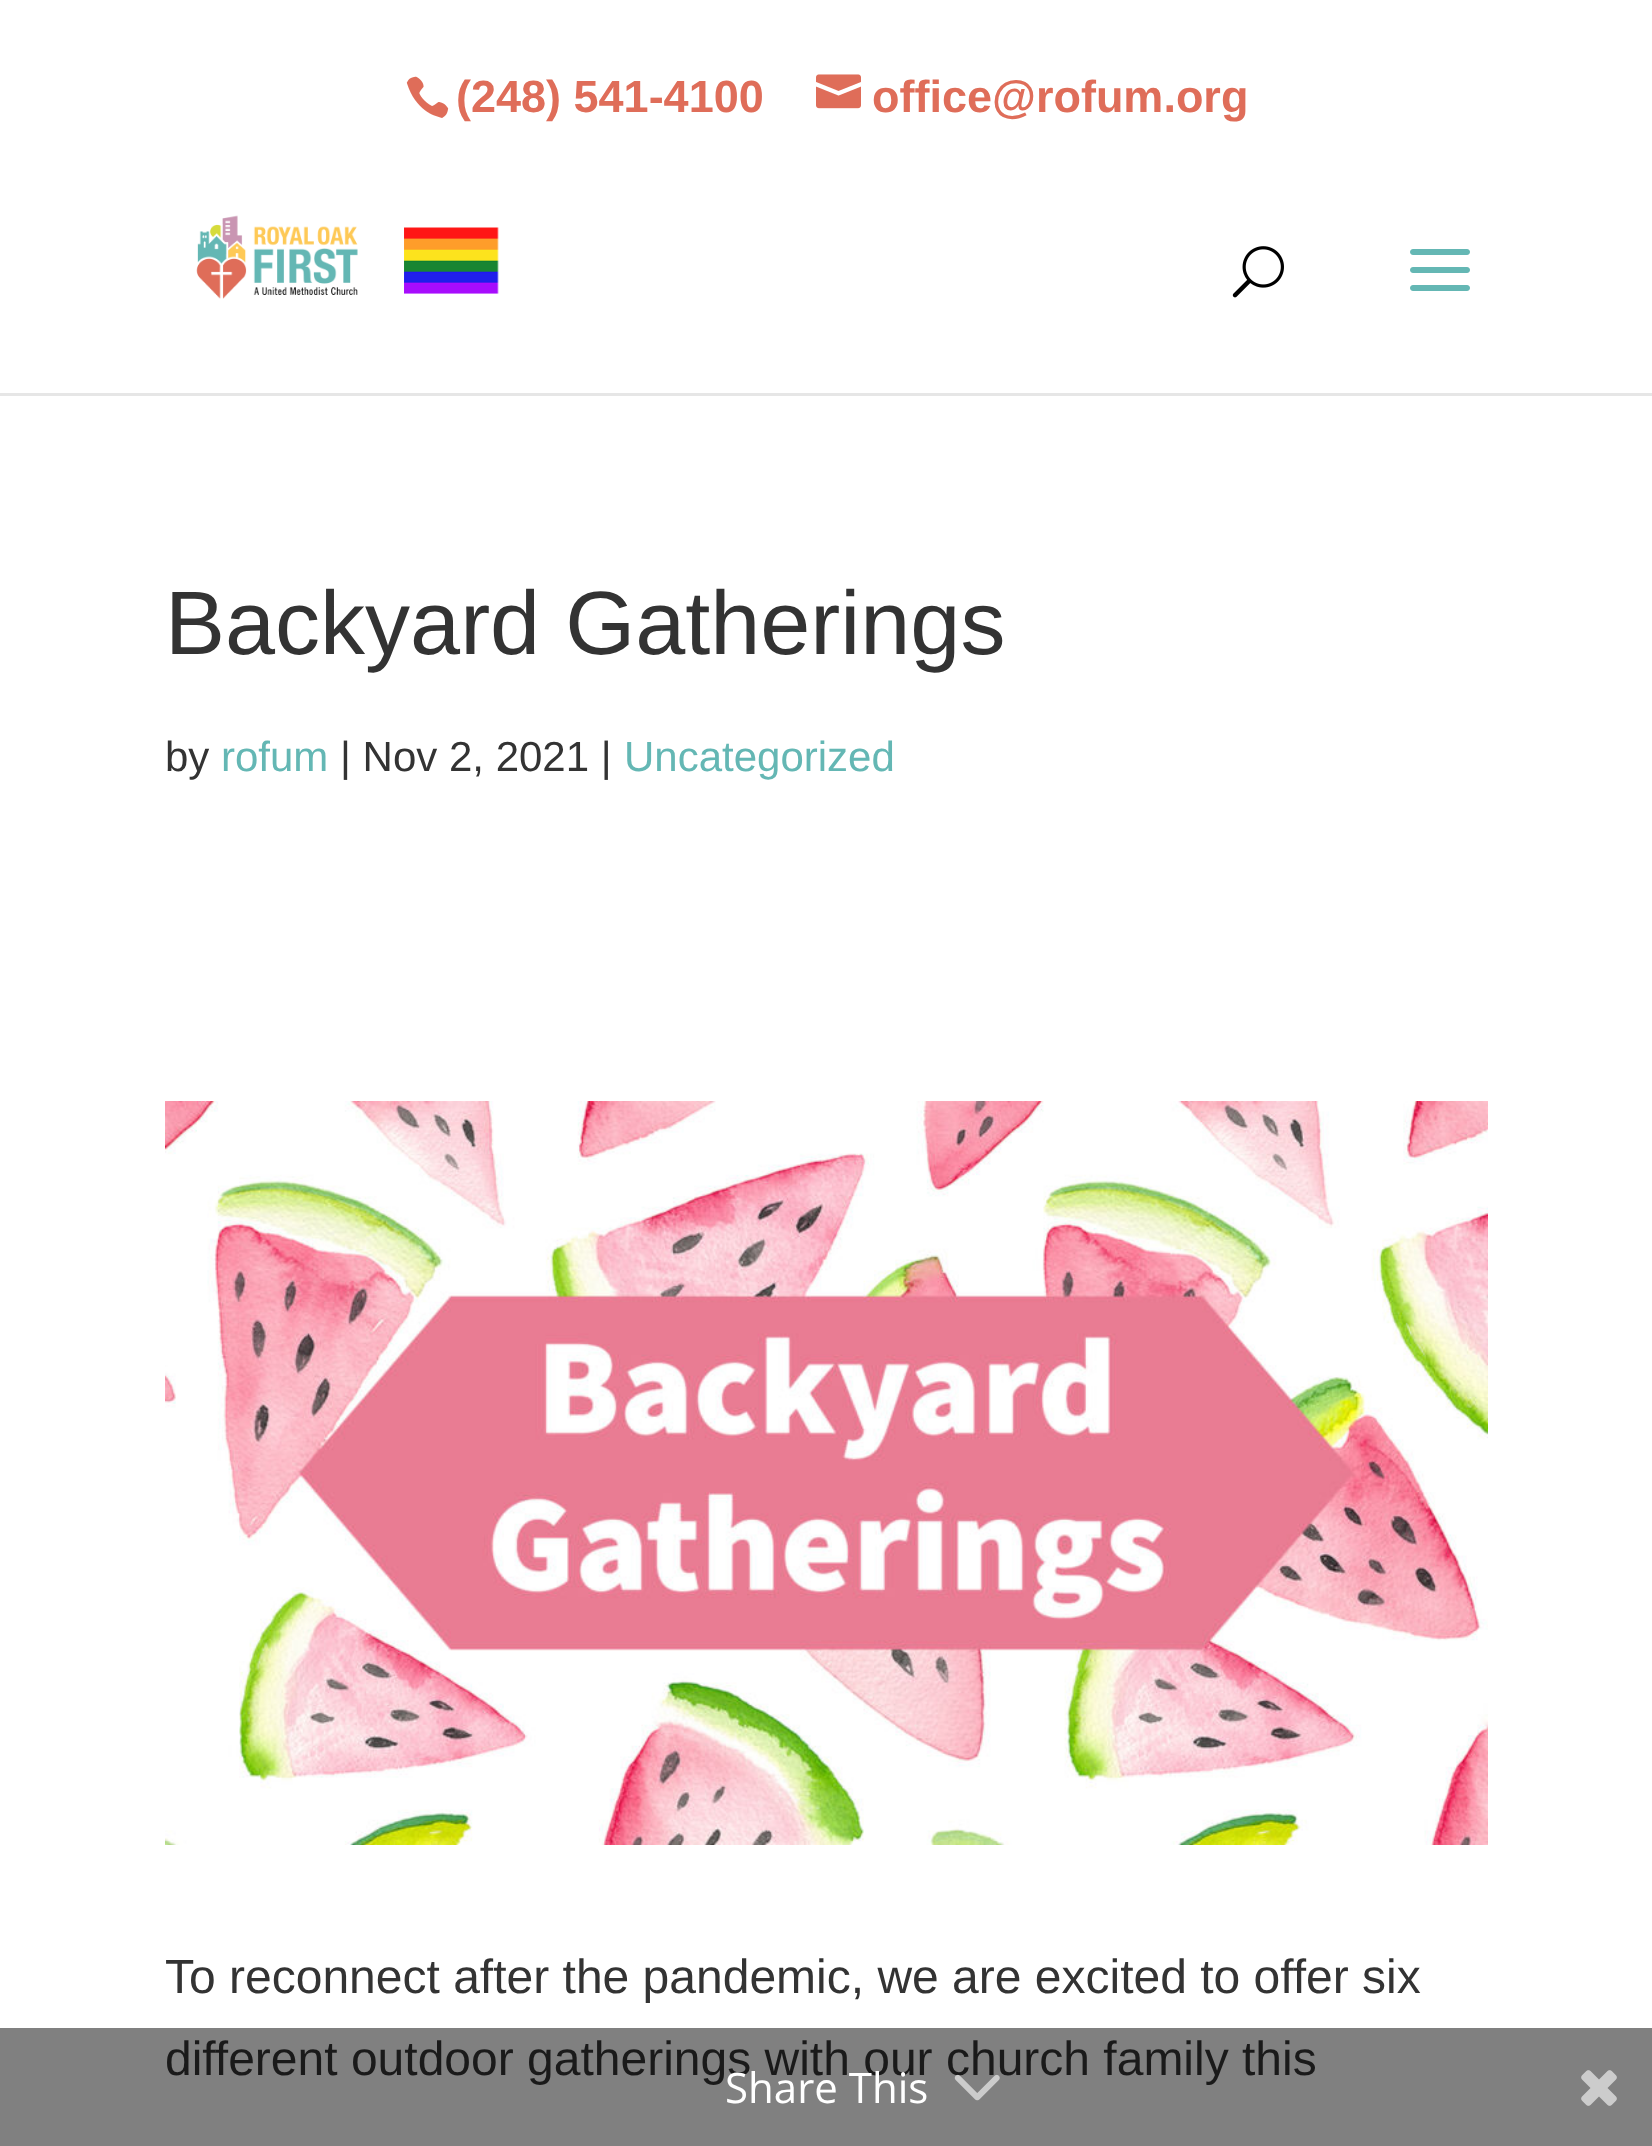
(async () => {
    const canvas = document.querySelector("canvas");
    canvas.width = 1652;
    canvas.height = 2146;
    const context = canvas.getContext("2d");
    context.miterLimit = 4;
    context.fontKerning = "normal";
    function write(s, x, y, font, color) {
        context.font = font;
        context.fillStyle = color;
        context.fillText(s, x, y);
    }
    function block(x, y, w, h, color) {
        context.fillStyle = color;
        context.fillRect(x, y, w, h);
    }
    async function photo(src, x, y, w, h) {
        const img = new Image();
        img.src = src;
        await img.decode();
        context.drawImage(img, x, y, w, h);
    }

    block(0, 0, 1652, 2146, "rgb(255, 255, 255)");
    block(0, 2028, 1652, 118, "rgb(128, 128, 128)");
    await photo("media/1.png", 406, 76, 43, 42);
    write("(248) 541-4100", 456, 112, "bold 45px Liberation Sans", "rgb(223, 109, 89)");
    await photo("media/2.png", 816, 74, 45, 35);
    write("office@rofum.org", 872, 112, "bold 45px Liberation Sans", "rgb(223, 109, 89)");
    block(0, 393, 1652, 3, "rgb(230, 230, 230)");
    await photo("media/3.png", 196, 215, 303, 84);
    await photo("media/4.png", 1232, 246, 52, 52);
    await photo("media/5.png", 1410, 249, 60, 42);
    write("Backyard Gatherings", 165, 654, "90px Liberation Sans", "rgb(51, 51, 51)");
    write("by", 165, 771, "42px Liberation Sans", "rgb(51, 51, 51)");
    write("rofum", 221, 771, "42px Liberation Sans", "rgb(100, 183, 180)");
    write("| Nov 2, 2021 |", 340, 771, "42px Liberation Sans", "rgb(51, 51, 51)");
    write("Uncategorized", 624, 771, "42px Liberation Sans", "rgb(100, 183, 180)");
    await photo("media/6.png", 165, 1101, 1323, 744);
    write("To reconnect after the pandemic, we are excited to offer six", 165, 1993, "48px Liberation Sans", "rgb(51, 51, 51)");
    write("different outdoor gatherings with our church family this", 165, 2075, "48px Liberation Sans", "rgb(26, 26, 26)");
    write("Share This", 725, 2103, "42px Open Sans", "rgb(255, 255, 255)");
    await photo("media/7.png", 954, 2074, 46, 27);
    await photo("media/8.png", 1581, 2070, 36, 36);
})();
